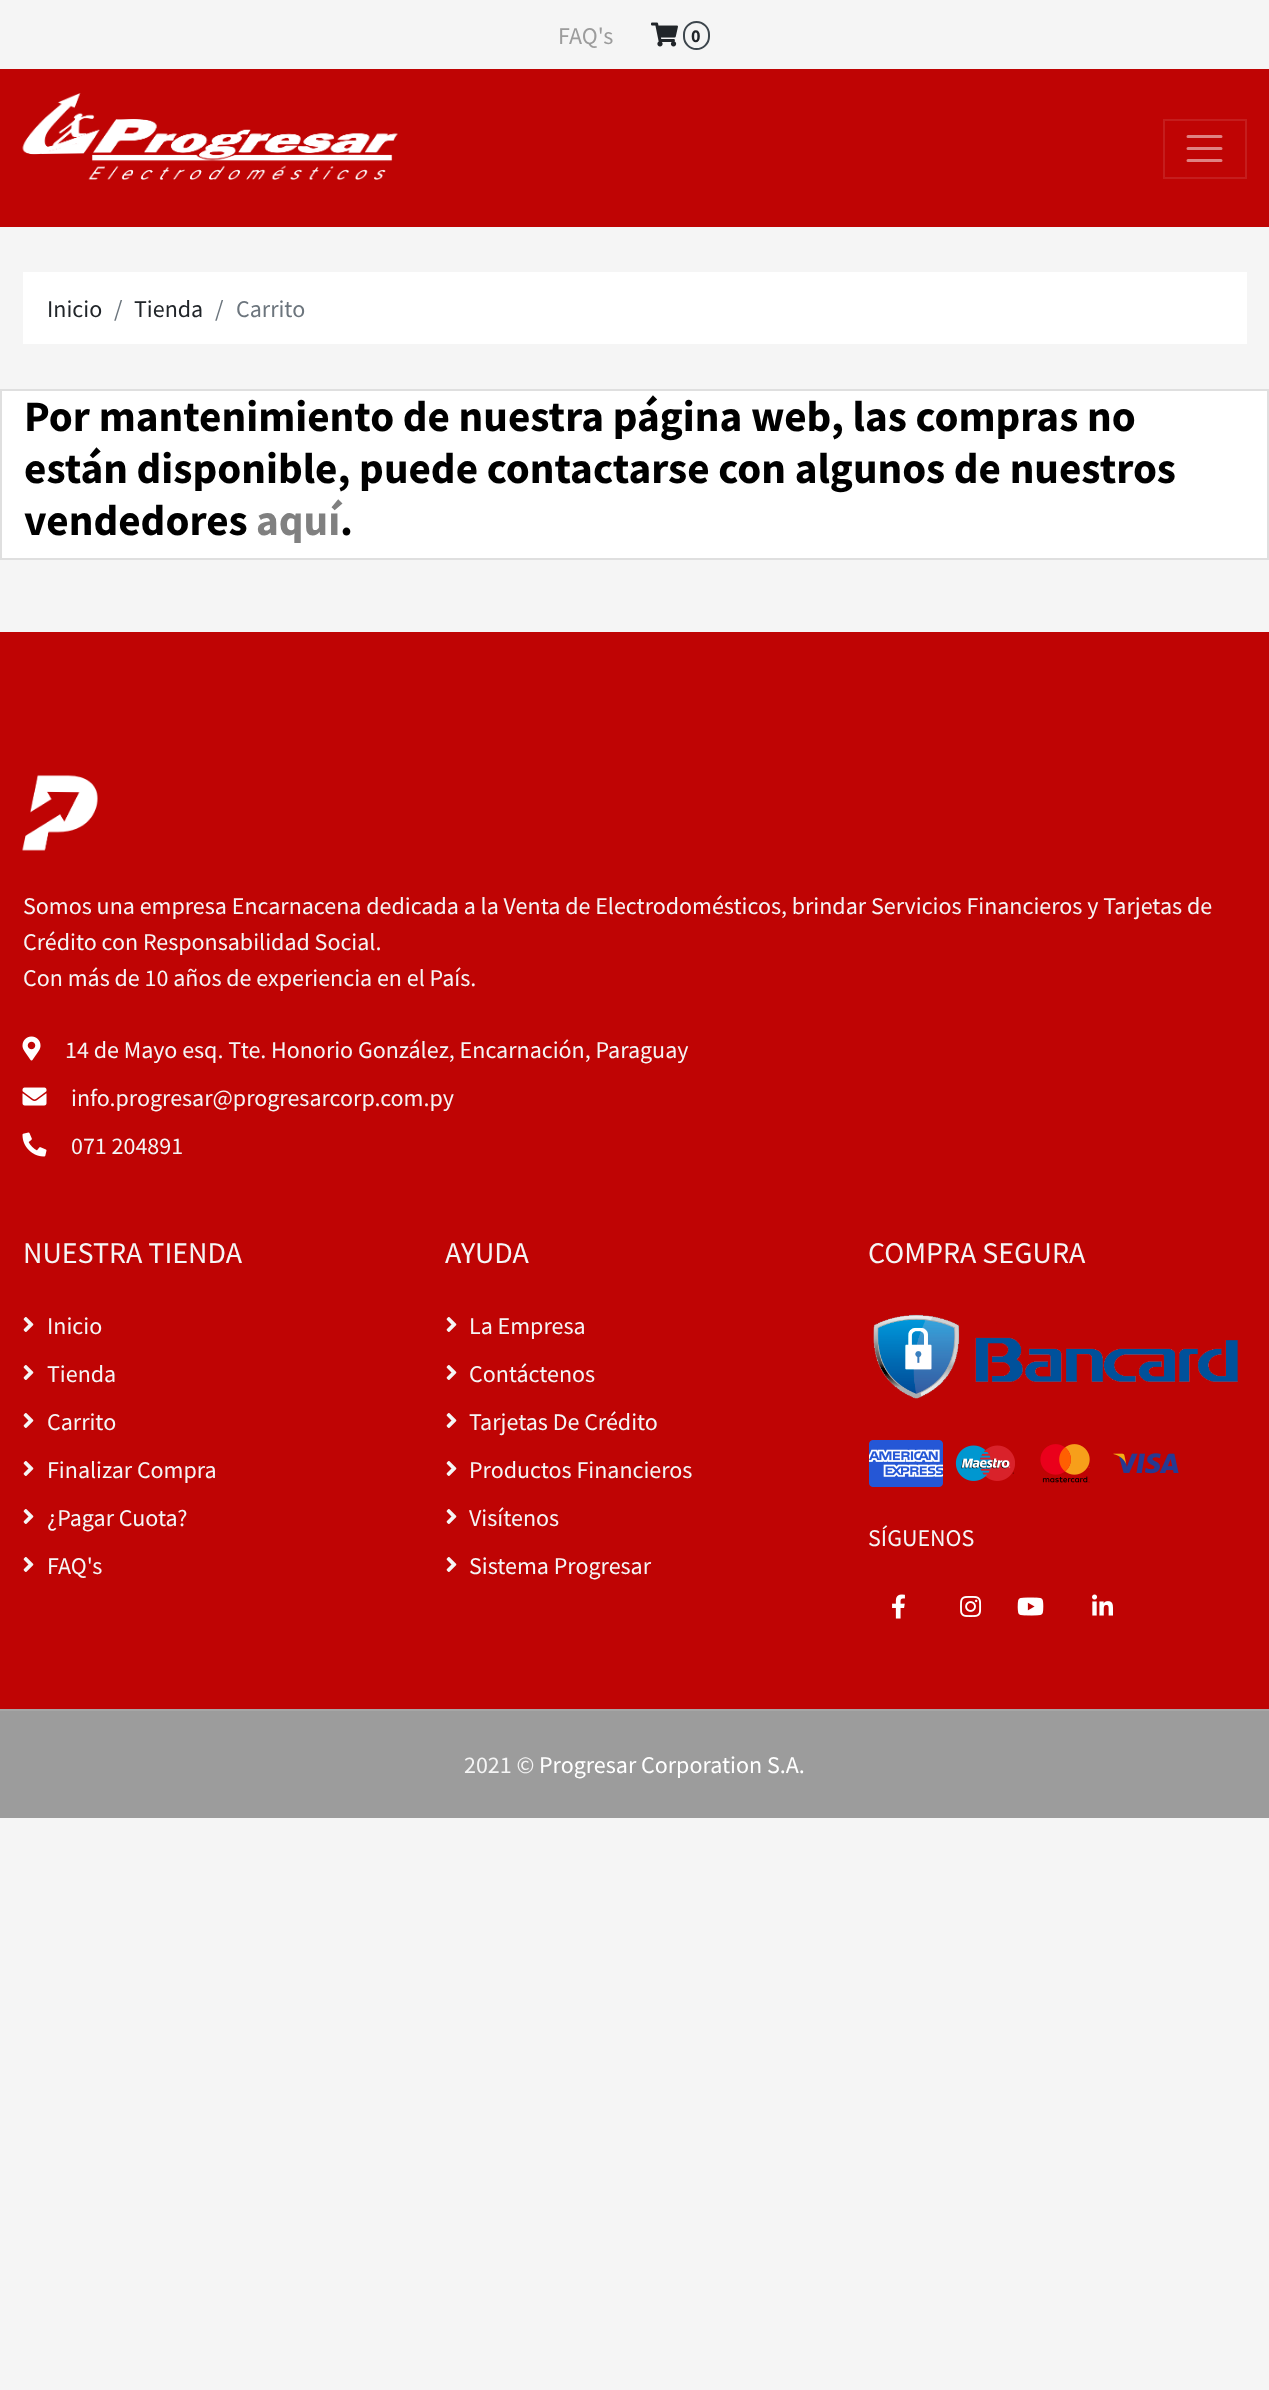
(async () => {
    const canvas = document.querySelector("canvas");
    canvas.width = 1269;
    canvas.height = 2390;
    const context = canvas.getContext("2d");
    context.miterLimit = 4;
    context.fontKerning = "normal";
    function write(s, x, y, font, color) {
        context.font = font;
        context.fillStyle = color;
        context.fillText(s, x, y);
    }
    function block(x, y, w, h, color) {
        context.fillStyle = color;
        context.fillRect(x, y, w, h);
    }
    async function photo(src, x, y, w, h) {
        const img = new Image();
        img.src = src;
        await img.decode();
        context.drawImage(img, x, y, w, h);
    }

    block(0, 0, 1269, 2390, "rgb(245, 245, 245)");
    write("FAQ's", 558, 44, "24px Source Sans Pro", "rgb(156, 156, 156)");
    await photo("media/1.png", 651, 22, 27, 25);
    context.beginPath();
    context.roundRect(684, 22, 25, 27, 12.5);
    context.strokeStyle = "rgb(61, 70, 77)";
    context.lineWidth = 2;
    context.stroke();
    write("0", 691, 42, "bold 18px Source Sans Pro", "rgb(33, 37, 41)");
    block(0, 69, 1269, 158, "rgb(191, 4, 4)");
    await photo("media/2.png", 22, 93, 376, 87);
    context.strokeStyle = "rgb(197, 29, 29)";
    context.strokeRect(1164, 120, 82, 58);
    context.beginPath();
    context.moveTo(1188, 136.5);
    context.lineTo(1221, 136.5);
    context.moveTo(1188, 148.5);
    context.lineTo(1221, 148.5);
    context.moveTo(1188, 160.5);
    context.lineTo(1221, 160.5);
    context.strokeStyle = "rgb(223, 130, 130)";
    context.lineWidth = 3;
    context.lineCap = "round";
    context.stroke();
    block(23, 272, 1224, 72, "rgb(255, 255, 255)");
    write("Inicio", 47, 317, "24px Source Sans Pro", "rgb(33, 37, 41)");
    write("/", 114, 317, "24px Source Sans Pro", "rgb(108, 117, 125)");
    write("Tienda", 134, 317, "24px Source Sans Pro", "rgb(33, 37, 41)");
    write("/", 215, 317, "24px Source Sans Pro", "rgb(108, 117, 125)");
    write("Carrito", 236, 317, "24px Source Sans Pro", "rgb(108, 117, 125)");
    context.fillStyle = "rgb(255, 255, 255)";
    context.beginPath();
    context.rect(1, 390, 1267, 169);
    context.fill();
    context.strokeStyle = "rgb(223, 223, 223)";
    context.lineWidth = 2;
    context.stroke();
    write("Por mantenimiento de nuestra página web, las compras no", 24, 431, "bold 43.25px Source Sans Pro", "rgb(0, 0, 0)");
    write("están disponible, puede contactarse con algunos de nuestros", 24, 483, "bold 43.25px Source Sans Pro", "rgb(0, 0, 0)");
    write("vendedores", 24, 535, "bold 43.25px Source Sans Pro", "rgb(0, 0, 0)");
    write("aquí", 256, 535, "bold 43.25px Source Sans Pro", "rgb(128, 128, 128)");
    write(".", 340, 535, "bold 43.25px Source Sans Pro", "rgb(0, 0, 0)");
    block(0, 632, 1269, 1077, "rgb(191, 4, 4)");
    await photo("media/3.png", 22, 775, 76, 76);
    write("Somos una empresa Encarnacena dedicada a la Venta de Electrodomésticos, brindar Servicios Financieros y Tarjetas de", 23, 914, "24px Source Sans Pro", "rgb(245, 245, 245)");
    write("Crédito con Responsabilidad Social.", 23, 950, "24px Source Sans Pro", "rgb(245, 245, 245)");
    write("Con más de 10 años de experiencia en el País.", 23, 986, "24px Source Sans Pro", "rgb(245, 245, 245)");
    await photo("media/4.png", 22, 1036, 19, 25);
    write("14 de Mayo esq. Tte. Honorio González, Encarnación, Paraguay", 65, 1058, "24px Source Sans Pro", "rgb(245, 245, 245)");
    await photo("media/5.png", 22, 1087, 25, 19);
    write("info.progresar@progresarcorp.com.py", 71, 1106, "24px Source Sans Pro", "rgb(245, 245, 245)");
    await photo("media/6.png", 22, 1132, 25, 25);
    write("071 204891", 71, 1154, "24px Source Sans Pro", "rgb(245, 245, 245)");
    write("NUESTRA TIENDA", 23, 1263, "30px Source Sans Pro", "rgb(245, 245, 245)");
    await photo("media/7.png", 23, 1317, 11, 15);
    write("Inicio", 47, 1334, "24px Source Sans Pro", "rgb(245, 245, 245)");
    await photo("media/7.png", 23, 1365, 11, 15);
    write("Tienda", 47, 1382, "24px Source Sans Pro", "rgb(245, 245, 245)");
    await photo("media/7.png", 23, 1413, 11, 15);
    write("Carrito", 47, 1430, "24px Source Sans Pro", "rgb(245, 245, 245)");
    await photo("media/7.png", 23, 1461, 11, 15);
    write("Finalizar Compra", 47, 1478, "24px Source Sans Pro", "rgb(245, 245, 245)");
    await photo("media/7.png", 23, 1509, 11, 15);
    write("¿Pagar Cuota?", 47, 1526, "24px Source Sans Pro", "rgb(245, 245, 245)");
    await photo("media/7.png", 23, 1557, 11, 15);
    write("FAQ's", 47, 1574, "24px Source Sans Pro", "rgb(245, 245, 245)");
    write("AYUDA", 445, 1263, "30px Source Sans Pro", "rgb(245, 245, 245)");
    await photo("media/7.png", 446, 1317, 11, 15);
    write("La Empresa", 469, 1334, "24px Source Sans Pro", "rgb(245, 245, 245)");
    await photo("media/7.png", 446, 1365, 11, 15);
    write("Contáctenos", 469, 1382, "24px Source Sans Pro", "rgb(245, 245, 245)");
    await photo("media/7.png", 446, 1413, 11, 15);
    write("Tarjetas De Crédito", 469, 1430, "24px Source Sans Pro", "rgb(245, 245, 245)");
    await photo("media/7.png", 446, 1461, 11, 15);
    write("Productos Financieros", 469, 1478, "24px Source Sans Pro", "rgb(245, 245, 245)");
    await photo("media/7.png", 446, 1509, 11, 15);
    write("Visítenos", 469, 1526, "24px Source Sans Pro", "rgb(245, 245, 245)");
    await photo("media/7.png", 446, 1557, 11, 15);
    write("Sistema Progresar", 469, 1574, "24px Source Sans Pro", "rgb(245, 245, 245)");
    write("COMPRA SEGURA", 868, 1263, "30px Source Sans Pro", "rgb(245, 245, 245)");
    await photo("media/8.png", 873, 1314, 365, 85);
    await photo("media/9.png", 869, 1440, 75, 47);
    await photo("media/10.png", 955, 1445, 60, 36);
    await photo("media/11.png", 1040, 1444, 50, 39);
    await photo("media/12.png", 1113, 1453, 66, 21);
    write("SÍGUENOS", 868, 1546, "24px Source Sans Pro", "rgb(245, 245, 245)");
    await photo("media/13.png", 892, 1594, 13, 25);
    await photo("media/14.png", 960, 1596, 22, 21);
    await photo("media/15.png", 1017, 1597, 27, 19);
    await photo("media/16.png", 1092, 1594, 21, 22);
    block(0, 1711, 1269, 107, "rgb(156, 156, 156)");
    block(0, 1709, 1269, 2, "rgb(166, 166, 166)");
    write("2021 ©", 464, 1773, "24px Source Sans Pro", "rgb(245, 245, 245)");
    write("Progresar Corporation S.A.", 539, 1773, "24px Source Sans Pro", "rgb(255, 255, 255)");
})();
